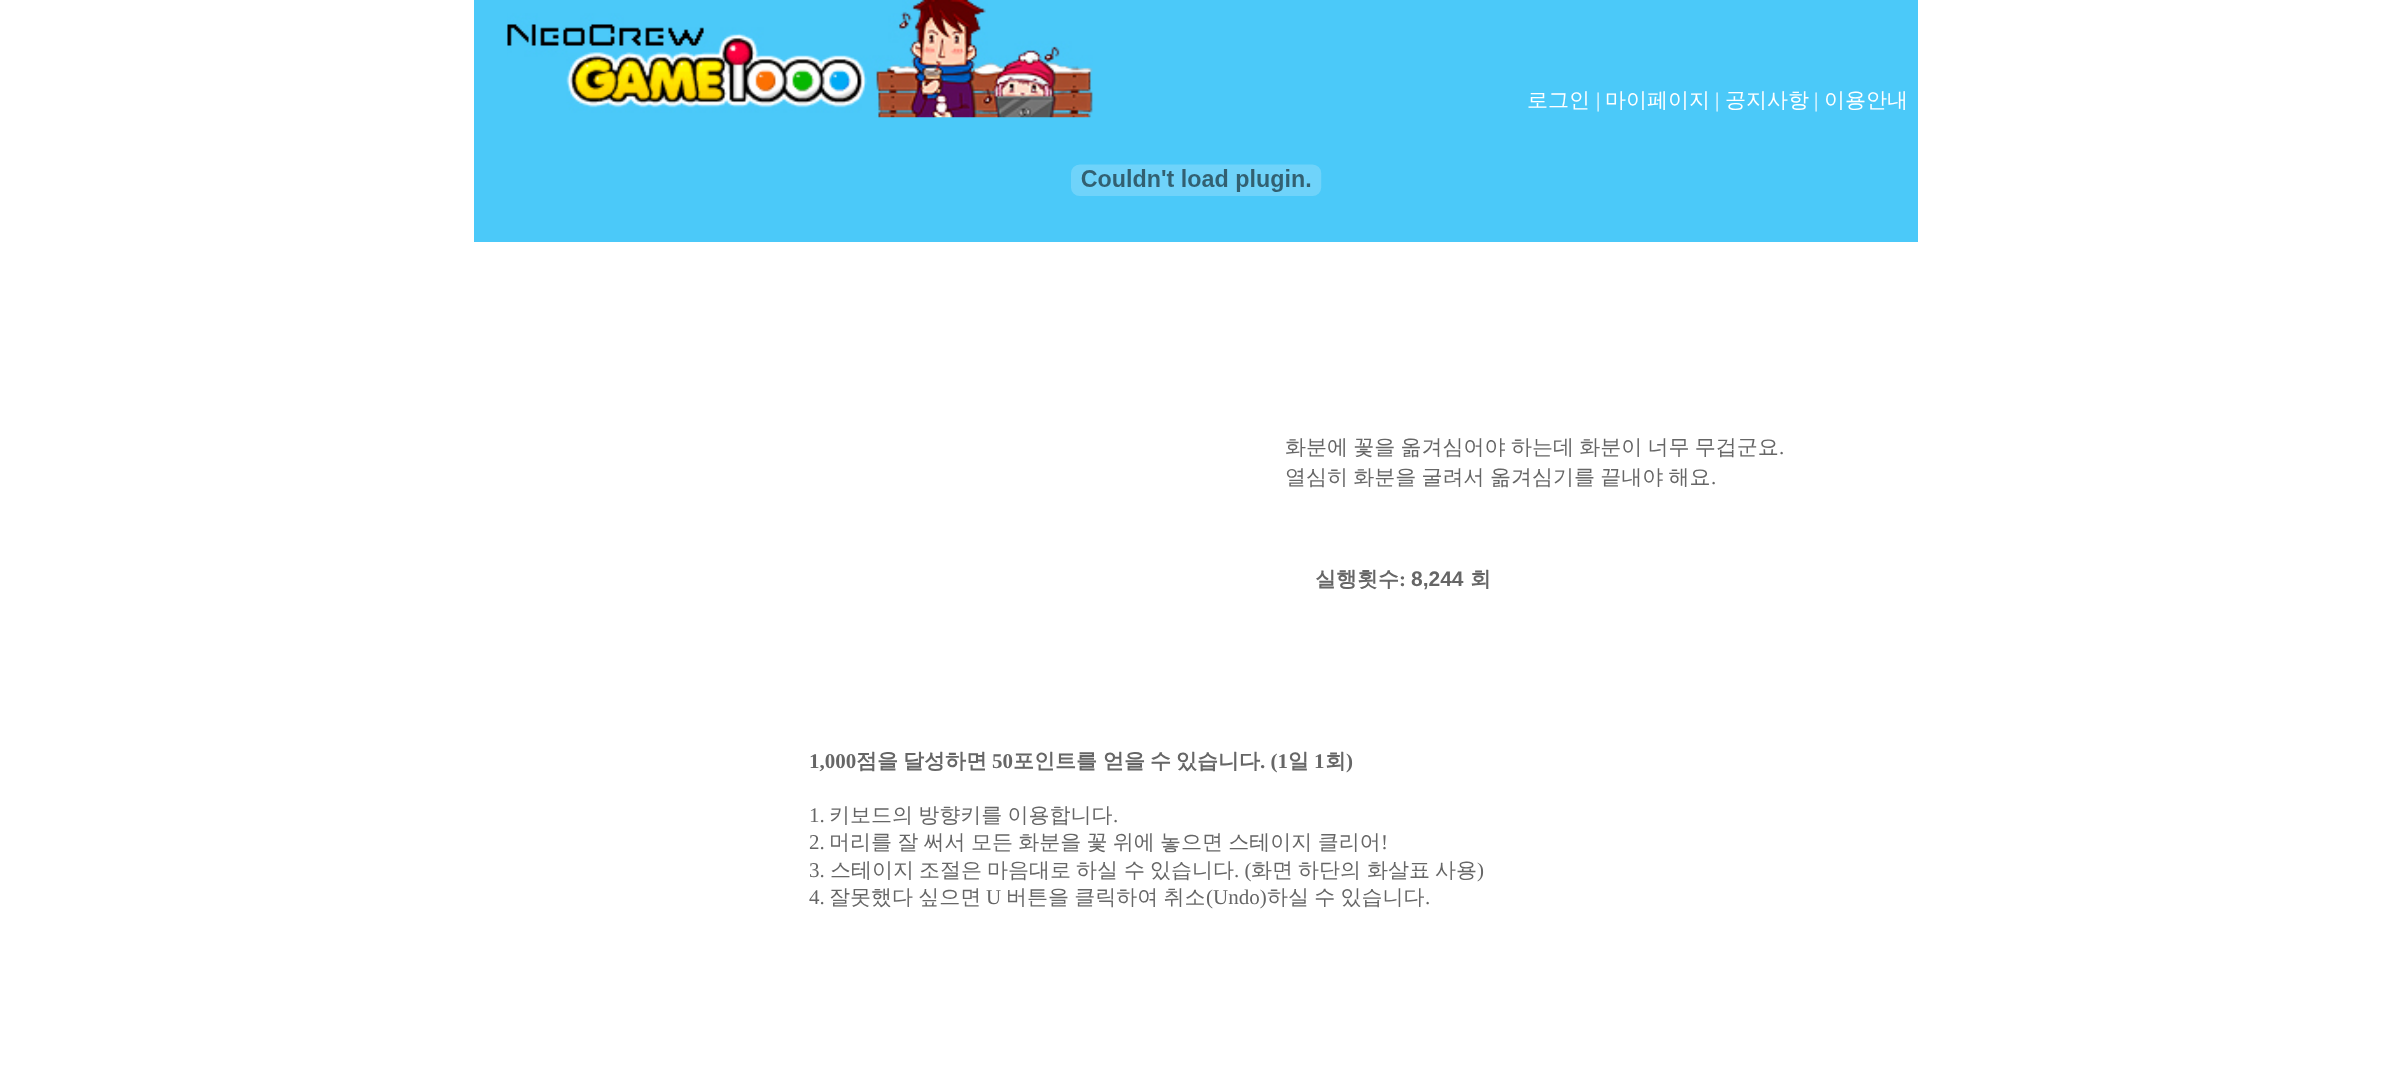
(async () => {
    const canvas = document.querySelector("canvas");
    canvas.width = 2391;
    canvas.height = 1078;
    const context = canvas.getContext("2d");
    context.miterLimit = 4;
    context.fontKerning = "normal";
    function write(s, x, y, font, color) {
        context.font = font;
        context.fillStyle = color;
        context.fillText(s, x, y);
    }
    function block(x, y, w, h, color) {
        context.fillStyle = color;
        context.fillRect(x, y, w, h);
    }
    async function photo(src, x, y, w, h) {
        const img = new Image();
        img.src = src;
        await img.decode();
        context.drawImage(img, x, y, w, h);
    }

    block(0, 0, 2391, 1078, "rgb(255, 255, 255)");
    block(474, 0, 1444, 242, "rgb(75, 201, 249)");
    await photo("media/1.png", 507, 0, 586, 118);
    write("로그인", 1527, 107, "500 21px WenQuanYi Zen Hei", "rgb(255, 255, 255)");
    write("|", 1596, 107, "21px Liberation Serif", "rgb(255, 255, 255)");
    write("마이페이지", 1605, 107, "500 21px WenQuanYi Zen Hei", "rgb(255, 255, 255)");
    write("|", 1715, 107, "21px Liberation Serif", "rgb(255, 255, 255)");
    write("공지사항", 1725, 107, "500 21px WenQuanYi Zen Hei", "rgb(255, 255, 255)");
    write("|", 1814, 107, "21px Liberation Serif", "rgb(255, 255, 255)");
    write("이용안내", 1824, 107, "500 21px WenQuanYi Zen Hei", "rgb(255, 255, 255)");
    await photo("media/2.png", 1071, 164, 251, 32);
    context.wordSpacing = "-1px";
    write("화분에 꽃을 옮겨심어야 하는데 화분이 너무 무겁군요", 1285, 454, "500 21px WenQuanYi Zen Hei", "rgb(102, 102, 102)");
    context.wordSpacing = "0px";
    write(".", 1779, 454, "21px Liberation Serif", "rgb(102, 102, 102)");
    context.wordSpacing = "-1px";
    write("열심히 화분을 굴려서 옮겨심기를 끝내야 해요", 1285, 484, "500 21px WenQuanYi Zen Hei", "rgb(102, 102, 102)");
    context.wordSpacing = "0px";
    write(".", 1711, 484, "21px Liberation Serif", "rgb(102, 102, 102)");
    write("실행횟수", 1315, 586, "bold 21px WenQuanYi Zen Hei", "rgb(102, 102, 102)");
    write(":", 1399, 586, "bold 21px Liberation Serif", "rgb(102, 102, 102)");
    write("8,244", 1411, 586, "bold 21px Liberation Sans", "rgb(102, 102, 102)");
    write("회", 1470, 586, "bold 21px WenQuanYi Zen Hei", "rgb(102, 102, 102)");
    write("1,000", 809, 768, "bold 21px Liberation Serif", "rgb(102, 102, 102)");
    write("점을", 856, 768, "bold 21px WenQuanYi Zen Hei", "rgb(102, 102, 102)");
    write("달성하면", 903, 768, "bold 21px WenQuanYi Zen Hei", "rgb(102, 102, 102)");
    write("50", 992, 768, "bold 21px Liberation Serif", "rgb(102, 102, 102)");
    write("포인트를", 1013, 768, "bold 21px WenQuanYi Zen Hei", "rgb(102, 102, 102)");
    write("얻을", 1103, 768, "bold 21px WenQuanYi Zen Hei", "rgb(102, 102, 102)");
    write("수", 1150, 768, "bold 21px WenQuanYi Zen Hei", "rgb(102, 102, 102)");
    write("있습니다", 1176, 768, "bold 21px WenQuanYi Zen Hei", "rgb(102, 102, 102)");
    write(". (1", 1260, 768, "bold 21px Liberation Serif", "rgb(102, 102, 102)");
    write("일", 1288, 768, "bold 21px WenQuanYi Zen Hei", "rgb(102, 102, 102)");
    write("1", 1314, 768, "bold 21px Liberation Serif", "rgb(102, 102, 102)");
    write("회", 1325, 768, "bold 21px WenQuanYi Zen Hei", "rgb(102, 102, 102)");
    write(")", 1346, 768, "bold 21px Liberation Serif", "rgb(102, 102, 102)");
    write("1.", 809, 822, "21px Liberation Serif", "rgb(102, 102, 102)");
    context.wordSpacing = "-1px";
    write("키보드의 방향키를 이용합니다", 829, 822, "500 21px WenQuanYi Zen Hei", "rgb(102, 102, 102)");
    context.wordSpacing = "0px";
    write(".", 1113, 822, "21px Liberation Serif", "rgb(102, 102, 102)");
    write("2.", 809, 849, "21px Liberation Serif", "rgb(102, 102, 102)");
    context.wordSpacing = "-1px";
    write("머리를 잘 써서 모든 화분을 꽃 위에 놓으면 스테이지 클리어", 829, 849, "500 21px WenQuanYi Zen Hei", "rgb(102, 102, 102)");
    context.wordSpacing = "0px";
    write("!", 1381, 849, "21px Liberation Serif", "rgb(102, 102, 102)");
    write("3.", 809, 877, "21px Liberation Serif", "rgb(102, 102, 102)");
    write("스테이지", 830, 877, "500 21px WenQuanYi Zen Hei", "rgb(102, 102, 102)");
    write("조절은", 919, 877, "500 21px WenQuanYi Zen Hei", "rgb(102, 102, 102)");
    write("마음대로", 987, 877, "500 21px WenQuanYi Zen Hei", "rgb(102, 102, 102)");
    write("하실", 1076, 877, "500 21px WenQuanYi Zen Hei", "rgb(102, 102, 102)");
    write("수", 1124, 877, "500 21px WenQuanYi Zen Hei", "rgb(102, 102, 102)");
    write("있습니다", 1150, 877, "500 21px WenQuanYi Zen Hei", "rgb(102, 102, 102)");
    write(". (", 1234, 877, "21px Liberation Serif", "rgb(102, 102, 102)");
    write("화면", 1251, 877, "500 21px WenQuanYi Zen Hei", "rgb(102, 102, 102)");
    write("하단의", 1298, 877, "500 21px WenQuanYi Zen Hei", "rgb(102, 102, 102)");
    write("화살표", 1367, 877, "500 21px WenQuanYi Zen Hei", "rgb(102, 102, 102)");
    write("사용", 1435, 877, "500 21px WenQuanYi Zen Hei", "rgb(102, 102, 102)");
    write(")", 1477, 877, "21px Liberation Serif", "rgb(102, 102, 102)");
    write("4.", 809, 904, "21px Liberation Serif", "rgb(102, 102, 102)");
    context.wordSpacing = "-1px";
    write("잘못했다 싶으면", 829, 904, "500 21px WenQuanYi Zen Hei", "rgb(102, 102, 102)");
    context.wordSpacing = "0px";
    write("U", 986, 904, "21px Liberation Serif", "rgb(102, 102, 102)");
    context.wordSpacing = "-1px";
    write("버튼을 클릭하여 취소", 1006, 904, "500 21px WenQuanYi Zen Hei", "rgb(102, 102, 102)");
    context.wordSpacing = "0px";
    write("(Undo)", 1206, 904, "21px Liberation Serif", "rgb(102, 102, 102)");
    context.wordSpacing = "-1px";
    write("하실 수 있습니다", 1267, 904, "500 21px WenQuanYi Zen Hei", "rgb(102, 102, 102)");
    context.wordSpacing = "0px";
    write(".", 1425, 904, "21px Liberation Serif", "rgb(102, 102, 102)");
})();
